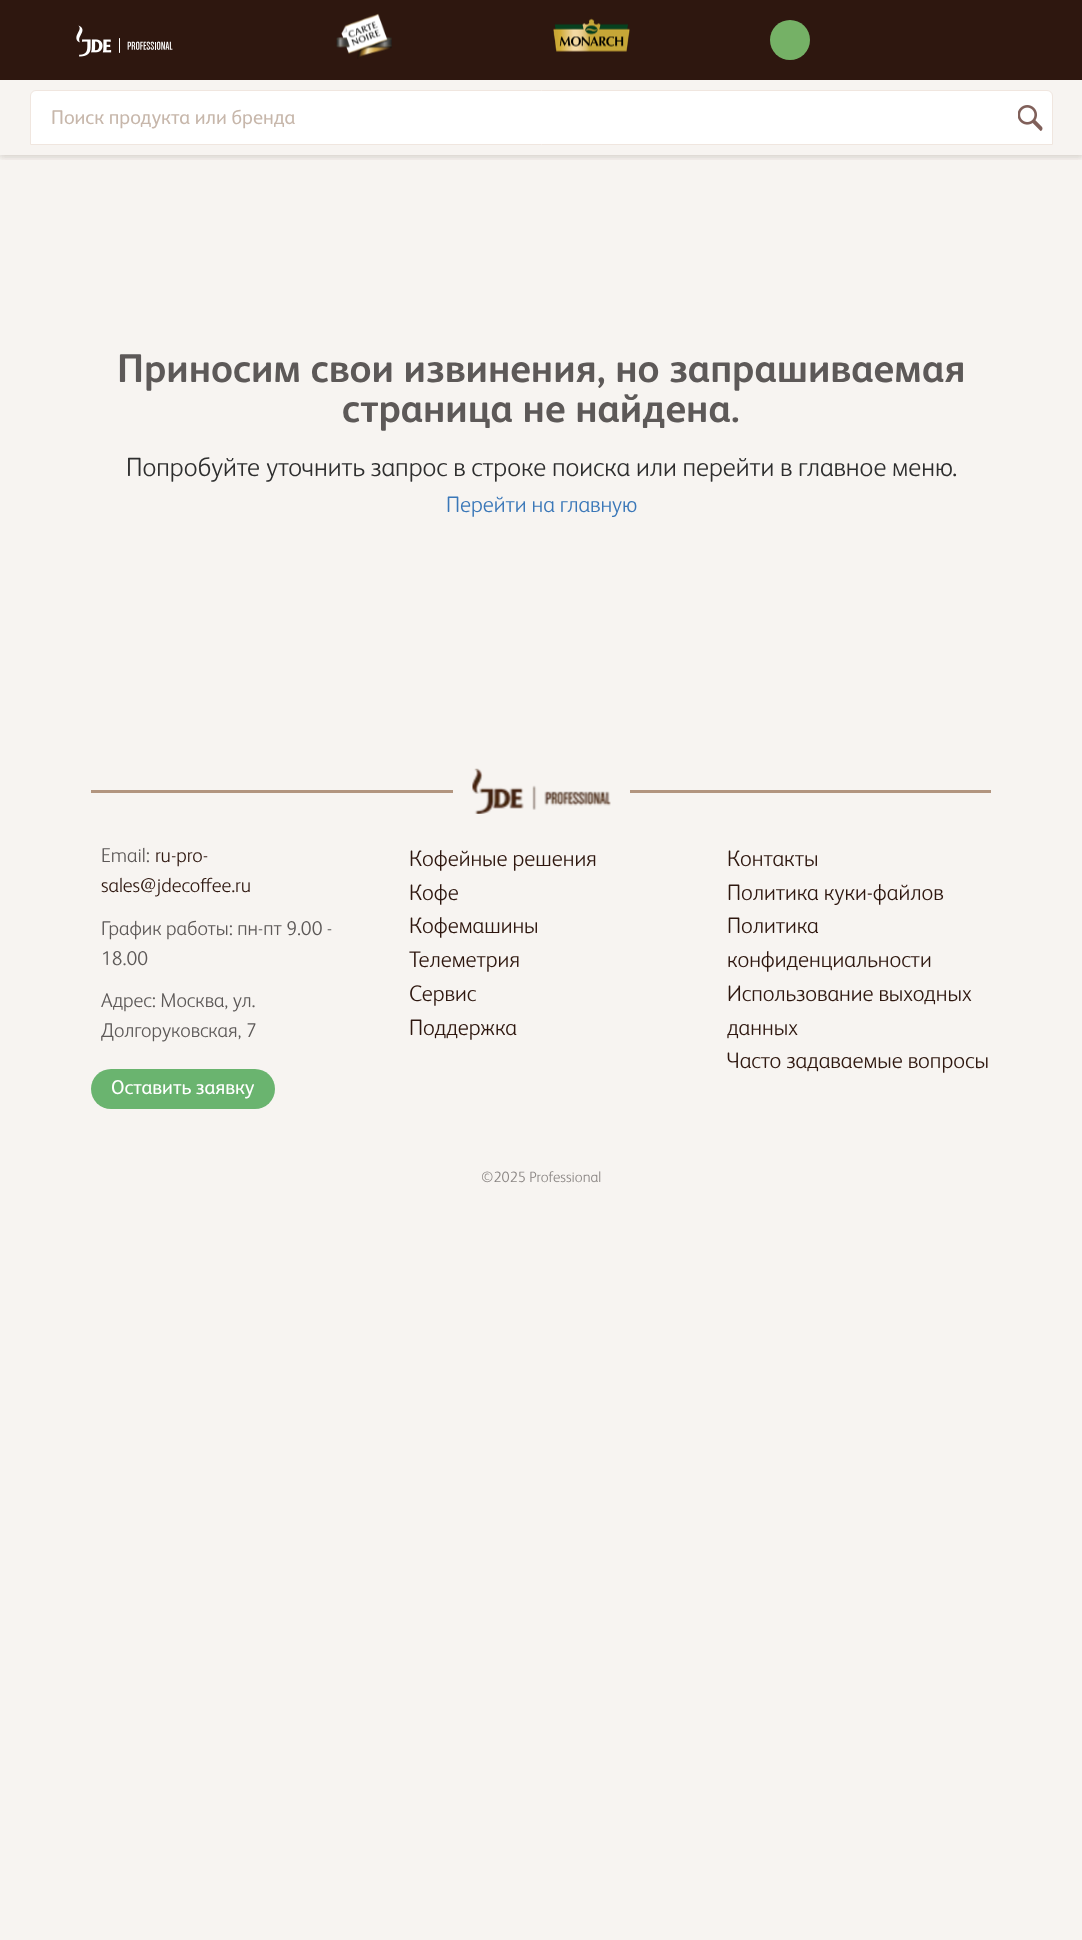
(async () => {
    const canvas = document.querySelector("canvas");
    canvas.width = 1082;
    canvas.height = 1940;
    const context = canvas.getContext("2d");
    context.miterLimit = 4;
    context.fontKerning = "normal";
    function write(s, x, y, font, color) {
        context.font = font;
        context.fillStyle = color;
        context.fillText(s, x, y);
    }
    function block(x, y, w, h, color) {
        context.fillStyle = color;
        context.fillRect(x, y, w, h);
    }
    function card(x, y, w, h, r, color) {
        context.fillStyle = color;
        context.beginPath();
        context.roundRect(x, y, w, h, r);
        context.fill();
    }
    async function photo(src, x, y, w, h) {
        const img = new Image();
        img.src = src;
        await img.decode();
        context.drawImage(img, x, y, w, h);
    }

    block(0, 0, 1082, 1940, "rgb(247, 244, 241)");
    context.save();
    context.beginPath();
    context.rect(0, 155, 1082, 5);
    context.clip();
    context.fillStyle = "rgba(81, 61, 56, 0.08)";
    context.filter = "blur(2.5px)";
    context.beginPath();
    context.rect(0, 3, 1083, 155);
    context.fill();
    context.filter = "none";
    context.filter = "blur(2.5px)";
    context.beginPath();
    context.rect(0, 3, 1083, 155);
    context.fill();
    context.filter = "none";
    context.restore();
    block(0, 0, 1082, 80, "rgb(46, 23, 15)");
    await photo("media/1.png", 76, 25, 97, 32);
    await photo("media/2.png", 336, 13, 56, 46);
    await photo("media/3.png", 553, 18, 77, 34);
    context.fillStyle = "rgb(117, 177, 102)";
    context.beginPath();
    context.arc(790, 40, 20, 0, Math.PI * 2);
    context.fill();
    context.fillStyle = "rgb(255, 255, 255)";
    context.beginPath();
    context.roundRect(30.5, 90.5, 1022, 54, [5.5, 5.5, 0, 0]);
    context.fill();
    context.strokeStyle = "rgb(240, 230, 223)";
    context.stroke();
    write("Поиск продукта или бренда", 51, 124, "20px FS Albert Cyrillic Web", "rgb(199, 183, 171)");
    await photo("media/4.png", 1018, 105, 25, 26);
    write("Приносим свои извинения, но запрашиваемая", 117, 382, "bold 40px FS Albert Cyrillic Web", "rgb(93, 89, 88)");
    write("страница не найдена.", 342, 422, "bold 40px FS Albert Cyrillic Web", "rgb(93, 89, 88)");
    write("Попробуйте уточнить запрос в строке поиска или перейти в главное меню.", 126, 476, "300 26.45px FS Albert Cyrillic Web", "rgb(46, 46, 46)");
    write("Перейти на главную", 446, 512, "300 22.5px FS Albert Cyrillic Web", "rgb(58, 119, 184)");
    block(91, 790, 900, 3, "rgb(178, 149, 127)");
    block(453, 790, 177, 3, "rgb(247, 244, 241)");
    await photo("media/5.png", 472, 768, 139, 46);
    write("Email:", 101, 862, "300 20px FS Albert Cyrillic Web", "rgb(93, 89, 88)");
    write("ru-pro-", 155, 862, "300 20px FS Albert Cyrillic Web", "rgb(46, 23, 15)");
    write("sales@jdecoffee.ru", 101, 892, "300 20px FS Albert Cyrillic Web", "rgb(46, 23, 15)");
    write("График работы: пн-пт 9.00 -", 101, 935, "300 20px FS Albert Cyrillic Web", "rgb(93, 89, 88)");
    write("18.00", 101, 965, "300 20px FS Albert Cyrillic Web", "rgb(93, 89, 88)");
    write("Адрес: Москва, ул.", 101, 1007, "300 20px FS Albert Cyrillic Web", "rgb(93, 89, 88)");
    write("Долгоруковская, 7", 101, 1037, "300 20px FS Albert Cyrillic Web", "rgb(93, 89, 88)");
    card(91, 1069, 184, 40, 20, "rgb(106, 180, 111)");
    write("Оставить заявку", 111, 1094, "20px FS Albert Cyrillic Web", "rgb(255, 255, 255)");
    write("Кофейные решения", 409, 866, "300 22.5px FS Albert Cyrillic Web", "rgb(46, 23, 15)");
    write("Кофе", 409, 900, "300 22.5px FS Albert Cyrillic Web", "rgb(46, 23, 15)");
    write("Кофемашины", 409, 933, "300 22.5px FS Albert Cyrillic Web", "rgb(46, 23, 15)");
    write("Телеметрия", 409, 967, "300 22.5px FS Albert Cyrillic Web", "rgb(46, 23, 15)");
    write("Сервис", 409, 1001, "300 22.5px FS Albert Cyrillic Web", "rgb(46, 23, 15)");
    write("Поддержка", 409, 1035, "300 22.5px FS Albert Cyrillic Web", "rgb(46, 23, 15)");
    write("Контакты", 727, 866, "300 22.5px FS Albert Cyrillic Web", "rgb(46, 23, 15)");
    write("Политика куки-файлов", 727, 900, "300 22.5px FS Albert Cyrillic Web", "rgb(46, 23, 15)");
    write("Политика", 727, 933, "300 22.5px FS Albert Cyrillic Web", "rgb(46, 23, 15)");
    write("конфиденциальности", 727, 967, "300 22.5px FS Albert Cyrillic Web", "rgb(46, 23, 15)");
    write("Использование выходных", 727, 1001, "300 22.5px FS Albert Cyrillic Web", "rgb(46, 23, 15)");
    write("данных", 727, 1035, "300 22.5px FS Albert Cyrillic Web", "rgb(46, 23, 15)");
    write("Часто задаваемые вопросы", 727, 1068, "300 22.5px FS Albert Cyrillic Web", "rgb(46, 23, 15)");
    write("©2025 Professional", 481, 1182, "300 15px FS Albert Cyrillic Web", "rgb(140, 135, 133)");
})();
